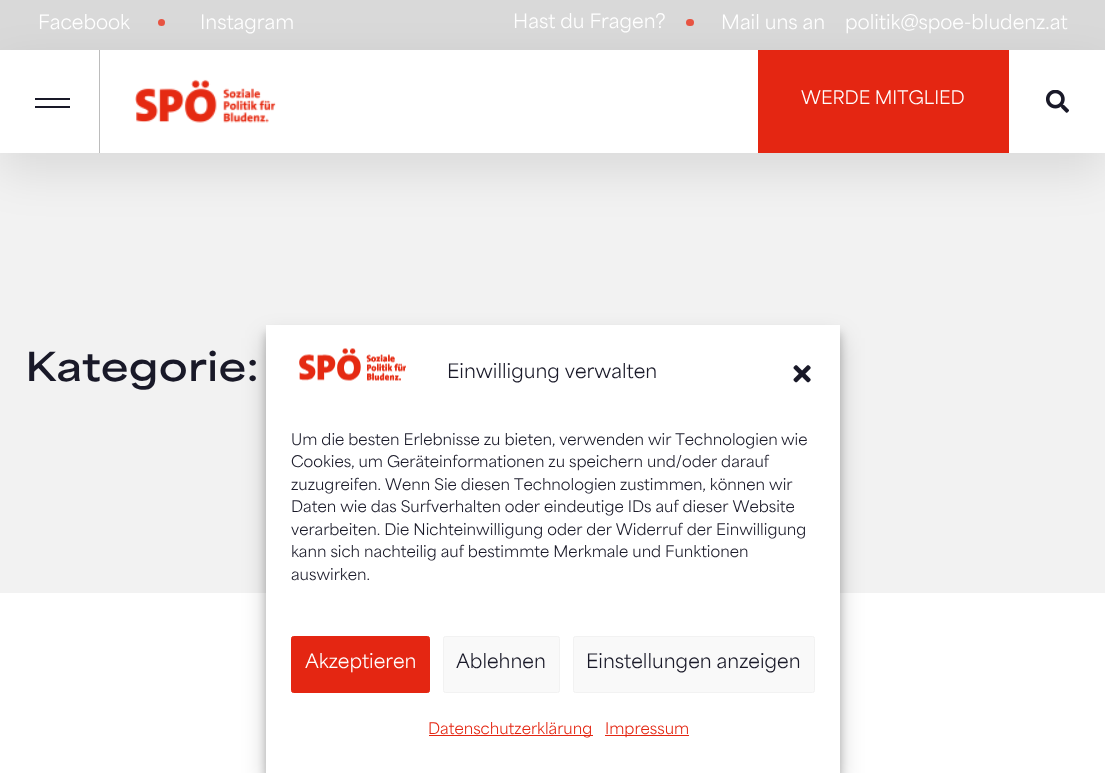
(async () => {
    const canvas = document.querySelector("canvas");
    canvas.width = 1105;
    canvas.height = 773;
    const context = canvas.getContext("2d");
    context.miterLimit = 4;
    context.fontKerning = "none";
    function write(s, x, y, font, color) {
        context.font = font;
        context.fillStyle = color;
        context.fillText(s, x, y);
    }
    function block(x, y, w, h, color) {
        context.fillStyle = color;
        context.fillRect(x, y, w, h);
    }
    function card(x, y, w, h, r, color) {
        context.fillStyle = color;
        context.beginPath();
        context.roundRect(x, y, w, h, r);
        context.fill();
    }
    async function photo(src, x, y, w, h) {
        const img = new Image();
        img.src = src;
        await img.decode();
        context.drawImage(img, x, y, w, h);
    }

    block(0, 0, 1105, 773, "rgb(255, 255, 255)");
    block(0, 0, 1105, 50, "rgb(217, 217, 217)");
    write("Facebook", 38, 29, "18.75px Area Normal", "rgb(255, 255, 255)");
    context.fillStyle = "rgb(232, 84, 66)";
    context.beginPath();
    context.arc(161.5, 22.5, 3.5, 0, Math.PI * 2);
    context.fill();
    write("Instagram", 200, 29, "18.75px Area Normal", "rgb(255, 255, 255)");
    write("Hast du Fragen?", 513, 28, "18.75px Area Normal", "rgb(255, 255, 255)");
    card(686, 19, 8, 7, 3.5, "rgb(232, 84, 66)");
    write("Mail uns an", 721, 29, "18.75px Area Normal", "rgb(255, 255, 255)");
    write("politik@spoe-bludenz.at", 845, 29, "18.75px Area Normal", "rgb(255, 255, 255)");
    block(0, 153, 1105, 440, "rgb(242, 242, 242)");
    context.fillStyle = "rgba(0, 0, 0, 0.1)";
    context.filter = "blur(24px)";
    context.beginPath();
    context.rect(0, 69, 1105, 102);
    context.fill();
    context.filter = "none";
    block(0, 50, 1105, 103, "rgb(255, 255, 255)");
    block(99, 50, 1, 103, "rgb(188, 188, 188)");
    block(35, 98, 35, 2, "rgb(25, 25, 40)");
    block(35, 106, 35, 2, "rgb(25, 25, 40)");
    await photo("media/1.png", 135, 79, 141, 44);
    block(758, 50, 251, 103, "rgb(228, 38, 18)");
    write("WERDE MITGLIED", 801, 104, "17.5px Area Normal", "rgb(255, 255, 255)");
    await photo("media/2.png", 1046, 90, 23, 23);
    write("Kategorie:", 25, 381, "bold 37.5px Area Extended", "rgb(25, 25, 40)");
    context.fillStyle = "rgba(0, 0, 0, 0.23)";
    context.filter = "blur(4px)";
    context.beginPath();
    context.rect(266, 333, 574, 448);
    context.fill();
    context.filter = "none";
    context.fillStyle = "rgba(0, 0, 0, 0.19)";
    context.filter = "blur(12.5px)";
    context.beginPath();
    context.rect(266, 338, 574, 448);
    context.fill();
    context.filter = "none";
    block(266, 325, 574, 448, "rgb(255, 255, 255)");
    await photo("media/3.png", 299, 348, 107, 33);
    write("Einwilligung verwalten", 447, 378, "18.75px Area Normal", "rgb(25, 25, 40)");
    await photo("media/4.png", 793, 365, 18, 18);
    write("Um die besten Erlebnisse zu bieten, verwenden wir Technologien", 291, 445, "15px Area Normal", "rgb(25, 25, 40)");
    write("wie", 781, 445, "15px Area Normal", "rgb(25, 25, 40)");
    write("Cookies, um Geräteinformationen zu speichern und/oder darauf", 291, 467, "15px Area Normal", "rgb(25, 25, 40)");
    write("zuzugreifen. Wenn Sie diesen Technologien", 291, 490, "15px Area Normal", "rgb(25, 25, 40)");
    write("zustimmen, können wir", 620, 490, "15px Area Normal", "rgb(25, 25, 40)");
    write("Daten wie das Surfverhalten oder eindeutige IDs auf dieser Website", 291, 512, "15px Area Normal", "rgb(25, 25, 40)");
    write("verarbeiten. Die Nichteinwilligung oder der Widerruf der Einwilligung", 291, 535, "15px Area Normal", "rgb(25, 25, 40)");
    write("kann sich nachteilig auf bestimmte Merkmale und Funktionen", 291, 557, "15px Area Normal", "rgb(25, 25, 40)");
    write("auswirken.", 291, 580, "15px Area Normal", "rgb(25, 25, 40)");
    context.fillStyle = "rgb(228, 38, 18)";
    context.beginPath();
    context.roundRect(291.5, 636.5, 138, 56, 2);
    context.fill();
    context.strokeStyle = "rgb(228, 38, 18)";
    context.stroke();
    write("Akzeptieren", 305, 668, "18.75px Area Normal", "rgb(255, 255, 255)");
    context.fillStyle = "rgb(249, 249, 249)";
    context.beginPath();
    context.roundRect(443.5, 636.5, 116, 56, 2);
    context.fill();
    context.strokeStyle = "rgb(242, 242, 242)";
    context.stroke();
    write("Ablehnen", 456, 668, "18.75px Area Normal", "rgb(25, 25, 40)");
    context.fillStyle = "rgb(249, 249, 249)";
    context.beginPath();
    context.roundRect(573.5, 636.5, 241, 56, 2);
    context.fill();
    context.stroke();
    write("Einstellungen anzeigen", 586, 668, "18.75px Area Normal", "rgb(25, 25, 40)");
    block(429, 735, 164, 1, "rgb(228, 38, 18)");
    write("Datenschutzerklärung", 428, 734, "15px Area Normal", "rgb(228, 38, 18)");
    block(605, 735, 84, 1, "rgb(228, 38, 18)");
    write("Impressum", 605, 734, "15px Area Normal", "rgb(228, 38, 18)");
})();
